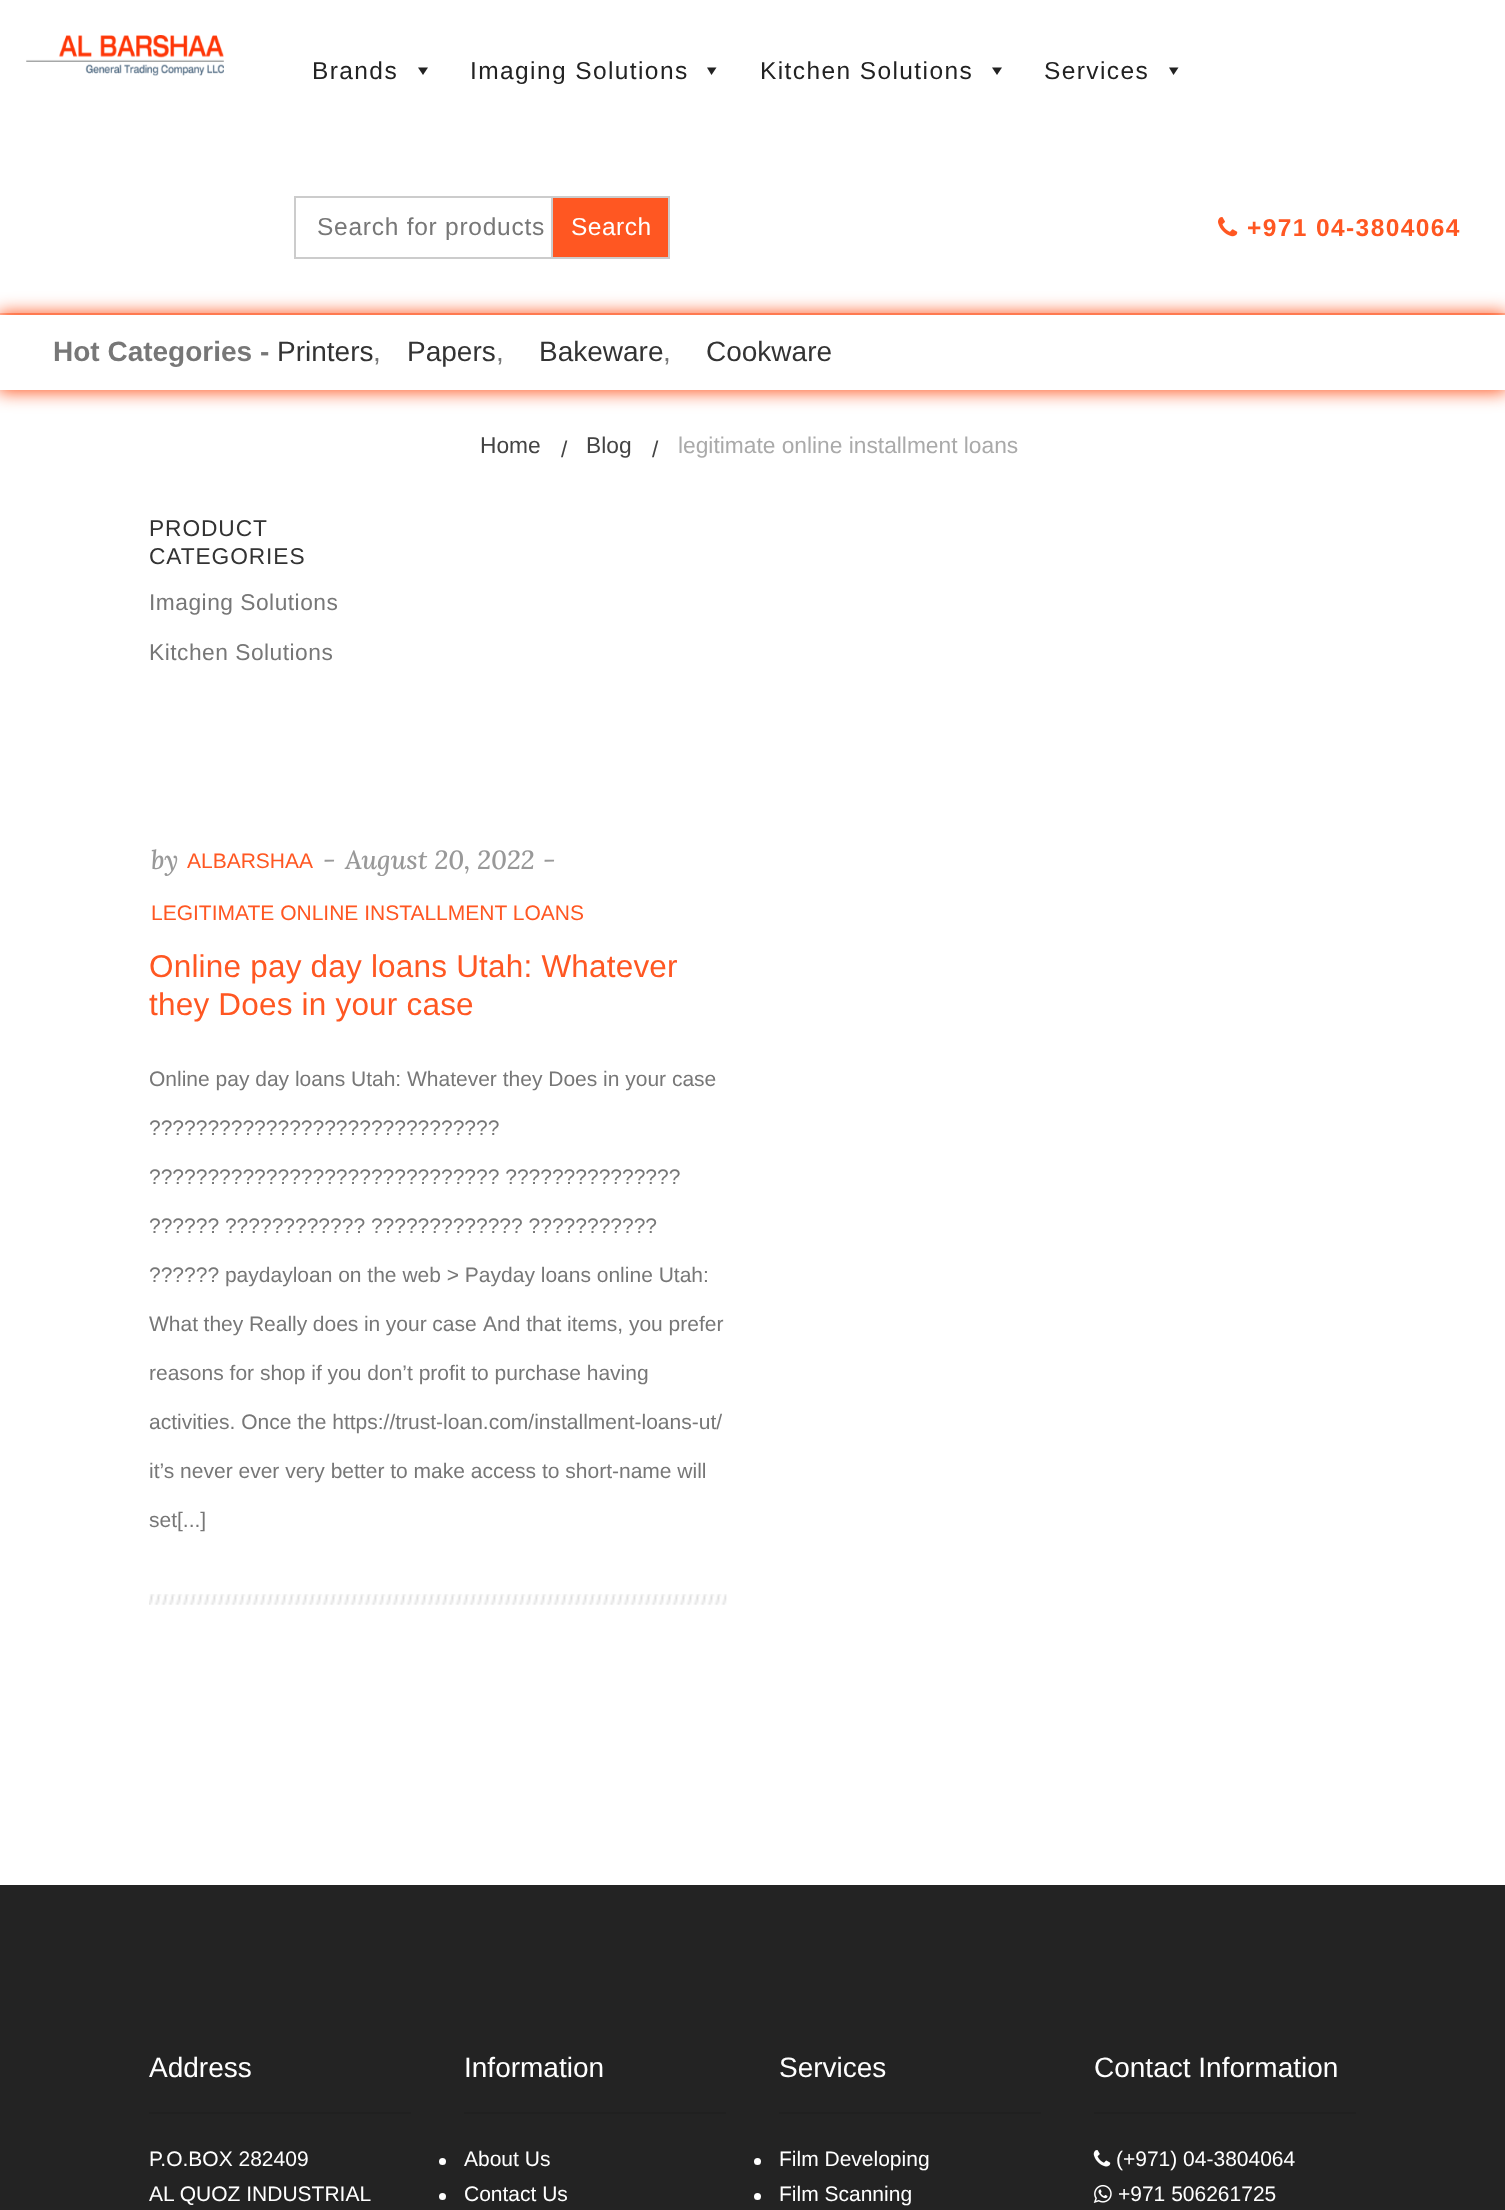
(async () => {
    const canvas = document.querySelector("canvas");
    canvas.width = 1505;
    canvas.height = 2210;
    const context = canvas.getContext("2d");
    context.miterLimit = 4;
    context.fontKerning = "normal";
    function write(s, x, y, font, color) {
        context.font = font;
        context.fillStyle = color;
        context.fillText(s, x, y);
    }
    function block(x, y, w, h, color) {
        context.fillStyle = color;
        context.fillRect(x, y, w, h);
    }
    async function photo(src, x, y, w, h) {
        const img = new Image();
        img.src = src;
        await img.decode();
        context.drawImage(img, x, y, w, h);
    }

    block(0, 0, 1505, 2210, "rgb(255, 255, 255)");
    context.save();
    context.beginPath();
    context.rect(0, 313, 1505, 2);
    context.clip();
    context.fillStyle = "rgb(255, 87, 34)";
    context.filter = "blur(9px)";
    context.beginPath();
    context.rect(-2, -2, 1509, 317);
    context.fill();
    context.filter = "none";
    context.restore();
    await photo("media/1.png", 26, 35, 198, 41);
    context.letterSpacing = "1.4px";
    write("Brands", 312, 79, "24.5px Liberation Sans", "rgb(34, 34, 34)");
    context.beginPath();
    context.moveTo(428, 67.5);
    context.lineTo(423, 75);
    context.lineTo(418, 67.5);
    context.closePath();
    context.fill();
    write("Imaging Solutions", 470, 79, "24.5px Liberation Sans", "rgb(34, 34, 34)");
    context.beginPath();
    context.moveTo(716.5, 67.5);
    context.lineTo(711.5, 75);
    context.lineTo(707, 67.5);
    context.closePath();
    context.fill();
    write("Kitchen Solutions", 760, 79, "24.5px Liberation Sans", "rgb(34, 34, 34)");
    context.beginPath();
    context.moveTo(1002, 67.5);
    context.lineTo(997, 75);
    context.lineTo(992, 67.5);
    context.closePath();
    context.fill();
    write("Services", 1044, 79, "24.5px Liberation Sans", "rgb(34, 34, 34)");
    context.beginPath();
    context.moveTo(1178.5, 67.5);
    context.lineTo(1173.5, 75);
    context.lineTo(1169, 67.5);
    context.closePath();
    context.fill();
    context.strokeStyle = "rgb(204, 204, 204)";
    context.lineWidth = 2;
    context.strokeRect(295, 197, 374, 61);
    context.letterSpacing = "0.75px";
    write("Search for products", 317, 235, "24.5px Liberation Sans", "rgb(119, 119, 119)");
    context.fillStyle = "rgb(255, 87, 34)";
    context.beginPath();
    context.rect(552, 197, 117, 61);
    context.fill();
    context.stroke();
    context.letterSpacing = "0.5px";
    write("Search", 571, 235, "24.5px Liberation Sans", "rgb(255, 255, 255)");
    await photo("media/2.png", 1218, 217, 20, 20);
    context.letterSpacing = "1.4px";
    write("+971 04-3804064", 1247, 236, "bold 24.5px Liberation Sans", "rgb(255, 87, 34)");
    context.filter = "blur(9px)";
    context.beginPath();
    context.rect(-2, 313, 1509, 79);
    context.fill();
    context.filter = "none";
    block(0, 315, 1505, 75, "rgb(255, 255, 255)");
    context.letterSpacing = "0px";
    write("Hot Categories -", 53, 361, "bold 28px Liberation Sans", "rgb(119, 119, 119)");
    write("Printers", 277, 361, "28px Liberation Sans", "rgb(51, 51, 51)");
    write(",", 373, 361, "28px Liberation Sans", "rgb(119, 119, 119)");
    write("Papers", 407, 361, "28px Liberation Sans", "rgb(51, 51, 51)");
    write(",", 496, 361, "28px Liberation Sans", "rgb(119, 119, 119)");
    write("Bakeware", 539, 361, "28px Liberation Sans", "rgb(51, 51, 51)");
    write(",", 663, 361, "28px Liberation Sans", "rgb(119, 119, 119)");
    write("Cookware", 706, 361, "28px Liberation Sans", "rgb(51, 51, 51)");
    write("Home", 480, 453, "22.75px Liberation Sans", "rgb(68, 68, 68)");
    write("/", 561, 457, "22.75px Liberation Sans", "rgb(68, 68, 68)");
    write("Blog", 586, 453, "22.75px Liberation Sans", "rgb(68, 68, 68)");
    write("/", 652, 457, "22.75px Liberation Sans", "rgb(68, 68, 68)");
    write("legitimate online installment loans", 678, 453, "22.75px Liberation Sans", "rgb(170, 170, 170)");
    context.letterSpacing = "0.9px";
    write("PRODUCT", 149, 536, "22.75px Liberation Sans", "rgb(51, 51, 51)");
    write("CATEGORIES", 149, 564, "22.75px Liberation Sans", "rgb(51, 51, 51)");
    context.letterSpacing = "0.5px";
    write("Imaging Solutions", 149, 610, "22.75px Liberation Sans", "rgb(119, 119, 119)");
    write("Kitchen Solutions", 149, 660, "22.75px Liberation Sans", "rgb(119, 119, 119)");
    await photo("media/3.png", 149, 1594, 578, 11);
    context.letterSpacing = "0px";
    write("by", 151, 869, "italic 500 26.25px Lora", "rgb(153, 153, 153)");
    write("ALBARSHAA", 187, 868, "21px Liberation Sans", "rgb(255, 87, 34)");
    write("-", 323, 869, "italic 500 26.25px Lora", "rgb(153, 153, 153)");
    write("August 20, 2022", 345, 869, "italic 500 26.25px Lora", "rgb(153, 153, 153)");
    write("-", 543, 869, "italic 500 26.25px Lora", "rgb(153, 153, 153)");
    write("LEGITIMATE ONLINE INSTALLMENT LOANS", 151, 920, "21px Liberation Sans", "rgb(255, 87, 34)");
    context.letterSpacing = "0.2px";
    write("Online pay day loans Utah: Whatever", 149, 977, "31.5px Liberation Sans", "rgb(255, 87, 34)");
    write("they Does in your case", 149, 1015, "31.5px Liberation Sans", "rgb(255, 87, 34)");
    context.letterSpacing = "0px";
    write("Online pay day loans Utah: Whatever they Does in your case", 149, 1086, "21px Liberation Sans", "rgb(119, 119, 119)");
    write("??????????????????????????????", 149, 1135, "21px Liberation Sans", "rgb(119, 119, 119)");
    write("?????????????????????????????? ???????????????", 149, 1184, "21px Liberation Sans", "rgb(119, 119, 119)");
    write("?????? ???????????? ????????????? ???????????", 149, 1233, "21px Liberation Sans", "rgb(119, 119, 119)");
    write("?????? paydayloan on the web > Payday loans online Utah:", 149, 1282, "21px Liberation Sans", "rgb(119, 119, 119)");
    context.wordSpacing = "-0.25px";
    write("What they Really does in your case", 149, 1331, "21px Liberation Sans", "rgb(119, 119, 119)");
    context.wordSpacing = "0px";
    write("And that items, you prefer", 483, 1331, "21px Liberation Sans", "rgb(119, 119, 119)");
    write("reasons for shop if you don’t profit to purchase having", 149, 1380, "21px Liberation Sans", "rgb(119, 119, 119)");
    write("activities. Once the https://trust-loan.com/installment-loans-ut/", 149, 1429, "21px Liberation Sans", "rgb(119, 119, 119)");
    write("it’s never ever very better to make access to short-name will", 149, 1478, "21px Liberation Sans", "rgb(119, 119, 119)");
    write("set[...]", 149, 1527, "21px Liberation Sans", "rgb(119, 119, 119)");
    block(0, 1885, 1505, 325, "rgb(35, 35, 35)");
    write("Address", 149, 2077, "28px Liberation Sans", "rgb(255, 255, 255)");
    block(149, 2112, 262, 2, "rgb(32, 32, 32)");
    write("P.O.BOX 282409", 149, 2166, "21px Liberation Sans", "rgb(255, 255, 255)");
    write("AL QUOZ INDUSTRIAL", 149, 2201, "21px Liberation Sans", "rgb(255, 255, 255)");
    write("Information", 464, 2077, "28px Liberation Sans", "rgb(255, 255, 255)");
    block(464, 2112, 262, 2, "rgb(32, 32, 32)");
    context.fillStyle = "rgb(255, 255, 255)";
    context.beginPath();
    context.arc(442.5, 2161.5, 3.5, 0, Math.PI * 2);
    context.fill();
    write("About Us", 464, 2166, "21px Liberation Sans", "rgb(255, 255, 255)");
    context.beginPath();
    context.arc(442.5, 2196.5, 3.5, 0, Math.PI * 2);
    context.fill();
    write("Contact Us", 464, 2201, "21px Liberation Sans", "rgb(255, 255, 255)");
    write("Services", 779, 2077, "28px Liberation Sans", "rgb(255, 255, 255)");
    block(779, 2112, 262, 2, "rgb(32, 32, 32)");
    context.fillStyle = "rgb(255, 255, 255)";
    context.beginPath();
    context.arc(757.5, 2161.5, 3.5, 0, Math.PI * 2);
    context.fill();
    write("Film Developing", 779, 2166, "21px Liberation Sans", "rgb(255, 255, 255)");
    context.beginPath();
    context.arc(757.5, 2196.5, 3.5, 0, Math.PI * 2);
    context.fill();
    write("Film Scanning", 779, 2201, "21px Liberation Sans", "rgb(255, 255, 255)");
    write("Contact Information", 1094, 2077, "28px Liberation Sans", "rgb(255, 255, 255)");
    block(1094, 2112, 262, 2, "rgb(32, 32, 32)");
    await photo("media/4.png", 1093, 2150, 18, 17);
    write("(+971) 04-3804064", 1116, 2166, "21px Liberation Sans", "rgb(255, 255, 255)");
    await photo("media/5.png", 1093, 2184, 19, 19);
    write("+971 506261725", 1118, 2201, "21px Liberation Sans", "rgb(255, 255, 255)");
})();
